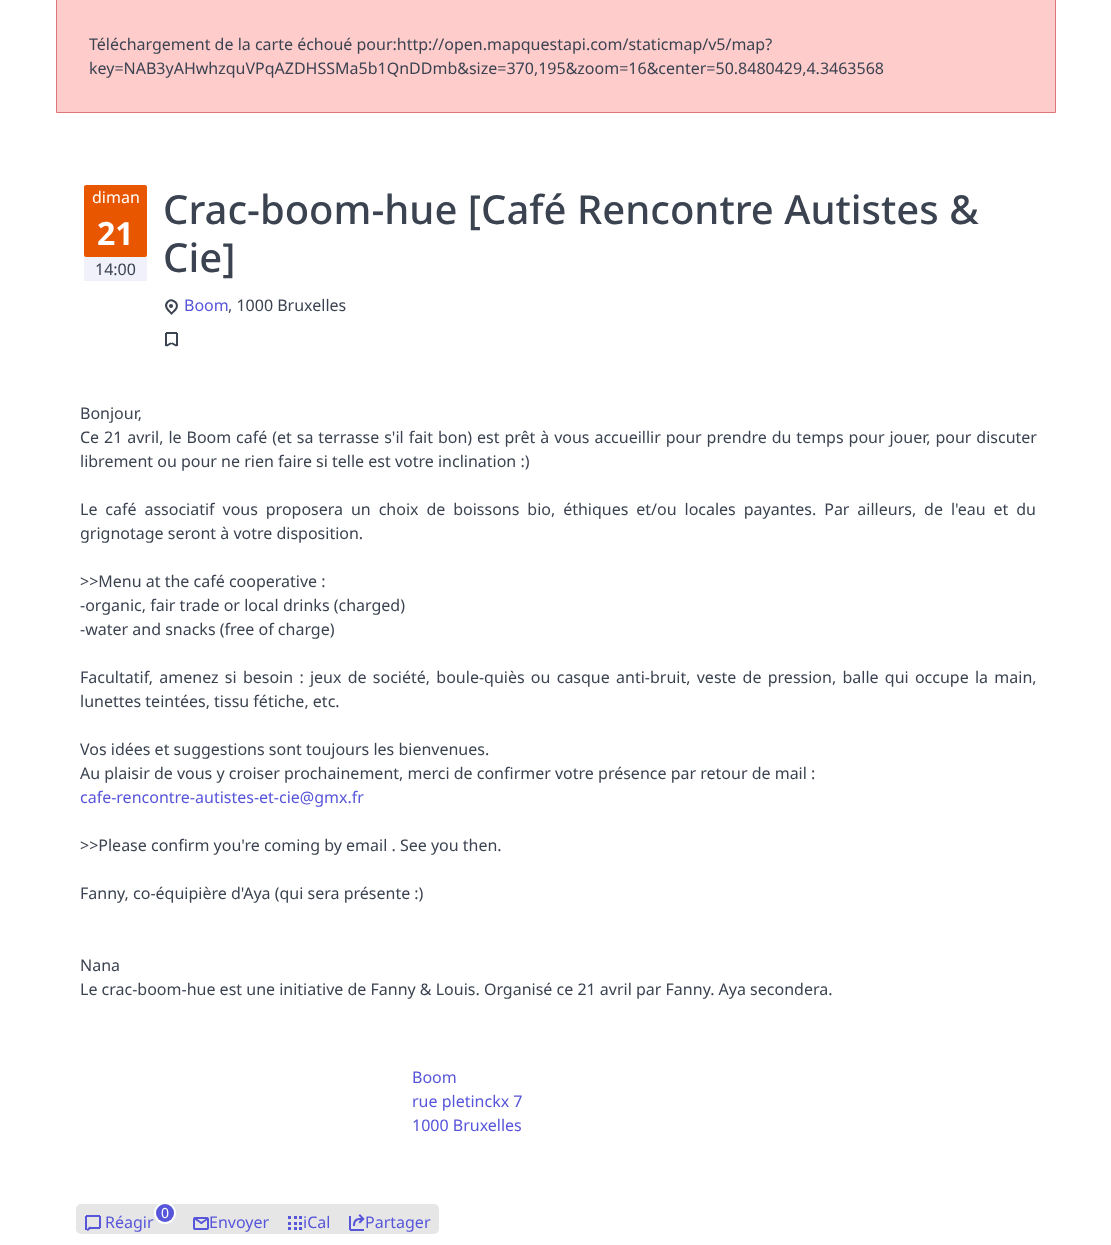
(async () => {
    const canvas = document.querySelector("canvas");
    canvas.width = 1111;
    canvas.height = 1245;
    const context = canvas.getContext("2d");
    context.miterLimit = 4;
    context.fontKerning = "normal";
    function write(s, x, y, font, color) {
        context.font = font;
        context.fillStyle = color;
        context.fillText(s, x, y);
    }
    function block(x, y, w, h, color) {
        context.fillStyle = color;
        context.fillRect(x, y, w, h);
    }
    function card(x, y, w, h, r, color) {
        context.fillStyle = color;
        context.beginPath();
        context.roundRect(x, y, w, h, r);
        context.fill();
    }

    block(0, 0, 1111, 1245, "rgb(255, 255, 255)");
    context.fillStyle = "rgb(255, 204, 204)";
    context.beginPath();
    context.rect(56.5, -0.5, 999, 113);
    context.fill();
    context.strokeStyle = "rgb(221, 119, 119)";
    context.stroke();
    write("Téléchargement de la carte échoué pour:http://open.mapquestapi.com/staticmap/v5/map?", 89, 50, "16px Noto Sans", "rgb(59, 67, 81)");
    write("key=NAB3yAHwhzquVPqAZDHSSMa5b1QnDDmb&size=370,195&zoom=16&center=50.8480429,4.3463568", 89, 74, "16px Noto Sans", "rgb(59, 67, 81)");
    card(84, 185, 63, 72, 2, "rgb(232, 86, 0)");
    write("diman", 92, 203, "16px Noto Sans", "rgb(255, 255, 255)");
    write("21", 97, 245, "bold 32px Noto Sans", "rgb(255, 255, 255)");
    block(84, 257, 63, 24, "rgb(241, 241, 252)");
    write("14:00", 95, 275, "16px Noto Sans", "rgb(59, 67, 81)");
    write("Crac-boom-hue [Café Rencontre Autistes &", 163, 224, "500 40px Noto Sans", "rgb(59, 67, 81)");
    write("Cie]", 163, 272, "500 40px Noto Sans", "rgb(59, 67, 81)");
    context.beginPath();
    context.moveTo(167.5, 302);
    context.bezierCurveTo(171.5, 298, 178.5, 302.5, 176.5, 308);
    context.bezierCurveTo(175.5, 310, 173, 312, 171.5, 313.5);
    context.bezierCurveTo(168.5, 310.5, 163.5, 306.5, 167.5, 302);
    context.closePath();
    context.strokeStyle = "rgb(59, 67, 81)";
    context.lineWidth = 2;
    context.stroke();
    context.beginPath();
    context.arc(171, 306, 2, 0, Math.PI * 2);
    context.fill();
    write("Boom", 184, 311, "16px Noto Sans", "rgb(87, 85, 217)");
    write(", 1000 Bruxelles", 228, 311, "16px Noto Sans", "rgb(59, 67, 81)");
    block(166, 332, 11, 2, "rgb(59, 67, 81)");
    block(176, 333, 2, 13, "rgb(59, 67, 81)");
    block(165, 333, 2, 13, "rgb(59, 67, 81)");
    context.beginPath();
    context.moveTo(165, 345.5);
    context.lineTo(170.5, 342.5);
    context.lineTo(172.5, 343.5);
    context.lineTo(167, 346.5);
    context.closePath();
    context.fill();
    context.beginPath();
    context.moveTo(170.5, 343.5);
    context.lineTo(172.5, 342.5);
    context.lineTo(178, 345.5);
    context.lineTo(176, 346.5);
    context.closePath();
    context.fill();
    write("Bonjour,", 80, 419, "16px Noto Sans", "rgb(59, 67, 81)");
    context.wordSpacing = "0.75px";
    write("Ce 21 avril, le Boom café (et sa terrasse s'il fait bon) est prêt à vous accueillir pour prendre du temps pour jouer, pour discuter", 80, 443, "16px Noto Sans", "rgb(59, 67, 81)");
    context.wordSpacing = "0px";
    write("librement ou pour ne rien faire si telle est votre inclination :)", 80, 467, "16px Noto Sans", "rgb(59, 67, 81)");
    context.wordSpacing = "3.75px";
    write("Le café associatif vous proposera un choix de boissons bio, éthiques et/ou locales payantes. Par ailleurs, de l'eau et du", 80, 515, "16px Noto Sans", "rgb(59, 67, 81)");
    context.wordSpacing = "0px";
    write("grignotage seront à votre disposition.", 80, 539, "16px Noto Sans", "rgb(59, 67, 81)");
    write(">>Menu at the café cooperative :", 80, 587, "16px Noto Sans", "rgb(59, 67, 81)");
    write("-organic, fair trade or local drinks (charged)", 80, 611, "16px Noto Sans", "rgb(59, 67, 81)");
    write("-water and snacks (free of charge)", 80, 635, "16px Noto Sans", "rgb(59, 67, 81)");
    context.wordSpacing = "2.1px";
    write("Facultatif, amenez si besoin : jeux de société, boule-quiès ou casque anti-bruit, veste de pression, balle qui occupe la main,", 80, 683, "16px Noto Sans", "rgb(59, 67, 81)");
    context.wordSpacing = "0px";
    write("lunettes teintées, tissu fétiche, etc.", 80, 707, "16px Noto Sans", "rgb(59, 67, 81)");
    write("Vos idées et suggestions sont toujours les bienvenues.", 80, 755, "16px Noto Sans", "rgb(59, 67, 81)");
    write("Au plaisir de vous y croiser prochainement, merci de confirmer votre présence par retour de mail :", 80, 779, "16px Noto Sans", "rgb(59, 67, 81)");
    write("cafe-rencontre-autistes-et-cie@gmx.fr", 80, 803, "16px Noto Sans", "rgb(87, 85, 217)");
    write(">>Please confirm you're coming by email . See you then.", 80, 851, "16px Noto Sans", "rgb(59, 67, 81)");
    write("Fanny, co-équipière d'Aya (qui sera présente :)", 80, 899, "16px Noto Sans", "rgb(59, 67, 81)");
    write("Nana", 80, 971, "16px Noto Sans", "rgb(59, 67, 81)");
    write("Le crac-boom-hue est une initiative de Fanny & Louis. Organisé ce 21 avril par Fanny. Aya secondera.", 80, 995, "16px Noto Sans", "rgb(59, 67, 81)");
    write("Boom", 412, 1083, "16px Noto Sans", "rgb(87, 85, 217)");
    write("rue pletinckx 7", 412, 1107, "16px Noto Sans", "rgb(87, 85, 217)");
    write("1000 Bruxelles", 412, 1131, "16px Noto Sans", "rgb(87, 85, 217)");
    card(76, 1204, 363, 30, 5, "rgb(230, 230, 230)");
    block(86, 1215, 14, 2, "rgb(87, 85, 217)");
    block(85, 1216, 2, 14, "rgb(87, 85, 217)");
    block(99, 1216, 2, 12, "rgb(87, 85, 217)");
    block(90, 1227, 10, 2, "rgb(87, 85, 217)");
    context.beginPath();
    context.moveTo(90.5, 1227);
    context.bezierCurveTo(91.5, 1228.5, 88.5, 1231.5, 87, 1230.5);
    context.bezierCurveTo(86, 1229.5, 89.5, 1226, 90.5, 1227);
    context.closePath();
    context.fill();
    context.beginPath();
    context.arc(165, 1213, 10, 0, Math.PI * 2);
    context.strokeStyle = "rgb(255, 255, 255)";
    context.stroke();
    context.beginPath();
    context.arc(165, 1213, 9, 0, Math.PI * 2);
    context.fill();
    write("0", 161, 1218, "14px Noto Sans", "rgb(255, 255, 255)");
    write("Réagir", 105, 1228, "16px Noto Sans", "rgb(87, 85, 217)");
    context.beginPath();
    context.roundRect(194, 1218, 14, 11, 1);
    context.strokeStyle = "rgb(87, 85, 217)";
    context.stroke();
    context.beginPath();
    context.moveTo(199.5, 1223);
    context.lineTo(206.5, 1218.5);
    context.lineTo(208, 1219.5);
    context.lineTo(201.5, 1224);
    context.closePath();
    context.fill();
    context.beginPath();
    context.moveTo(194.5, 1219.5);
    context.lineTo(196.5, 1218.5);
    context.lineTo(203, 1223);
    context.lineTo(201.5, 1224);
    context.closePath();
    context.fill();
    write("Envoyer", 209, 1228, "16px Noto Sans", "rgb(87, 85, 217)");
    block(299, 1227, 3, 3, "rgb(87, 85, 217)");
    block(299, 1222, 3, 3, "rgb(87, 85, 217)");
    block(299, 1216, 3, 3, "rgb(87, 85, 217)");
    block(294, 1227, 3, 3, "rgb(87, 85, 217)");
    block(294, 1216, 3, 3, "rgb(87, 85, 217)");
    block(288, 1227, 3, 3, "rgb(87, 85, 217)");
    block(288, 1222, 3, 3, "rgb(87, 85, 217)");
    block(288, 1216, 3, 3, "rgb(87, 85, 217)");
    block(294, 1222, 3, 3, "rgb(87, 85, 217)");
    write("iCal", 303, 1228, "16px Noto Sans", "rgb(87, 85, 217)");
    block(350, 1229, 14, 2, "rgb(87, 85, 217)");
    block(349, 1216, 2, 14, "rgb(87, 85, 217)");
    context.beginPath();
    context.moveTo(358.5, 1215.5);
    context.lineTo(360, 1214);
    context.lineTo(364.5, 1219);
    context.lineTo(363, 1220);
    context.closePath();
    context.fill();
    context.beginPath();
    context.moveTo(358.5, 1222);
    context.lineTo(363, 1217.5);
    context.lineTo(364.5, 1219);
    context.lineTo(360, 1223.5);
    context.closePath();
    context.fill();
    context.beginPath();
    context.moveTo(360, 1218);
    context.lineTo(362, 1218);
    context.bezierCurveTo(362, 1224.5, 359.5, 1226, 353, 1226);
    context.bezierCurveTo(353, 1221.5, 354.5, 1218, 360, 1218);
    context.closePath();
    context.moveTo(360, 1220);
    context.lineTo(362, 1220);
    context.bezierCurveTo(362, 1224, 358.5, 1226, 355, 1226);
    context.bezierCurveTo(355, 1222.5, 356, 1220, 360, 1220);
    context.closePath();
    context.fill("evenodd");
    write("Partager", 365, 1228, "16px Noto Sans", "rgb(87, 85, 217)");
})();
